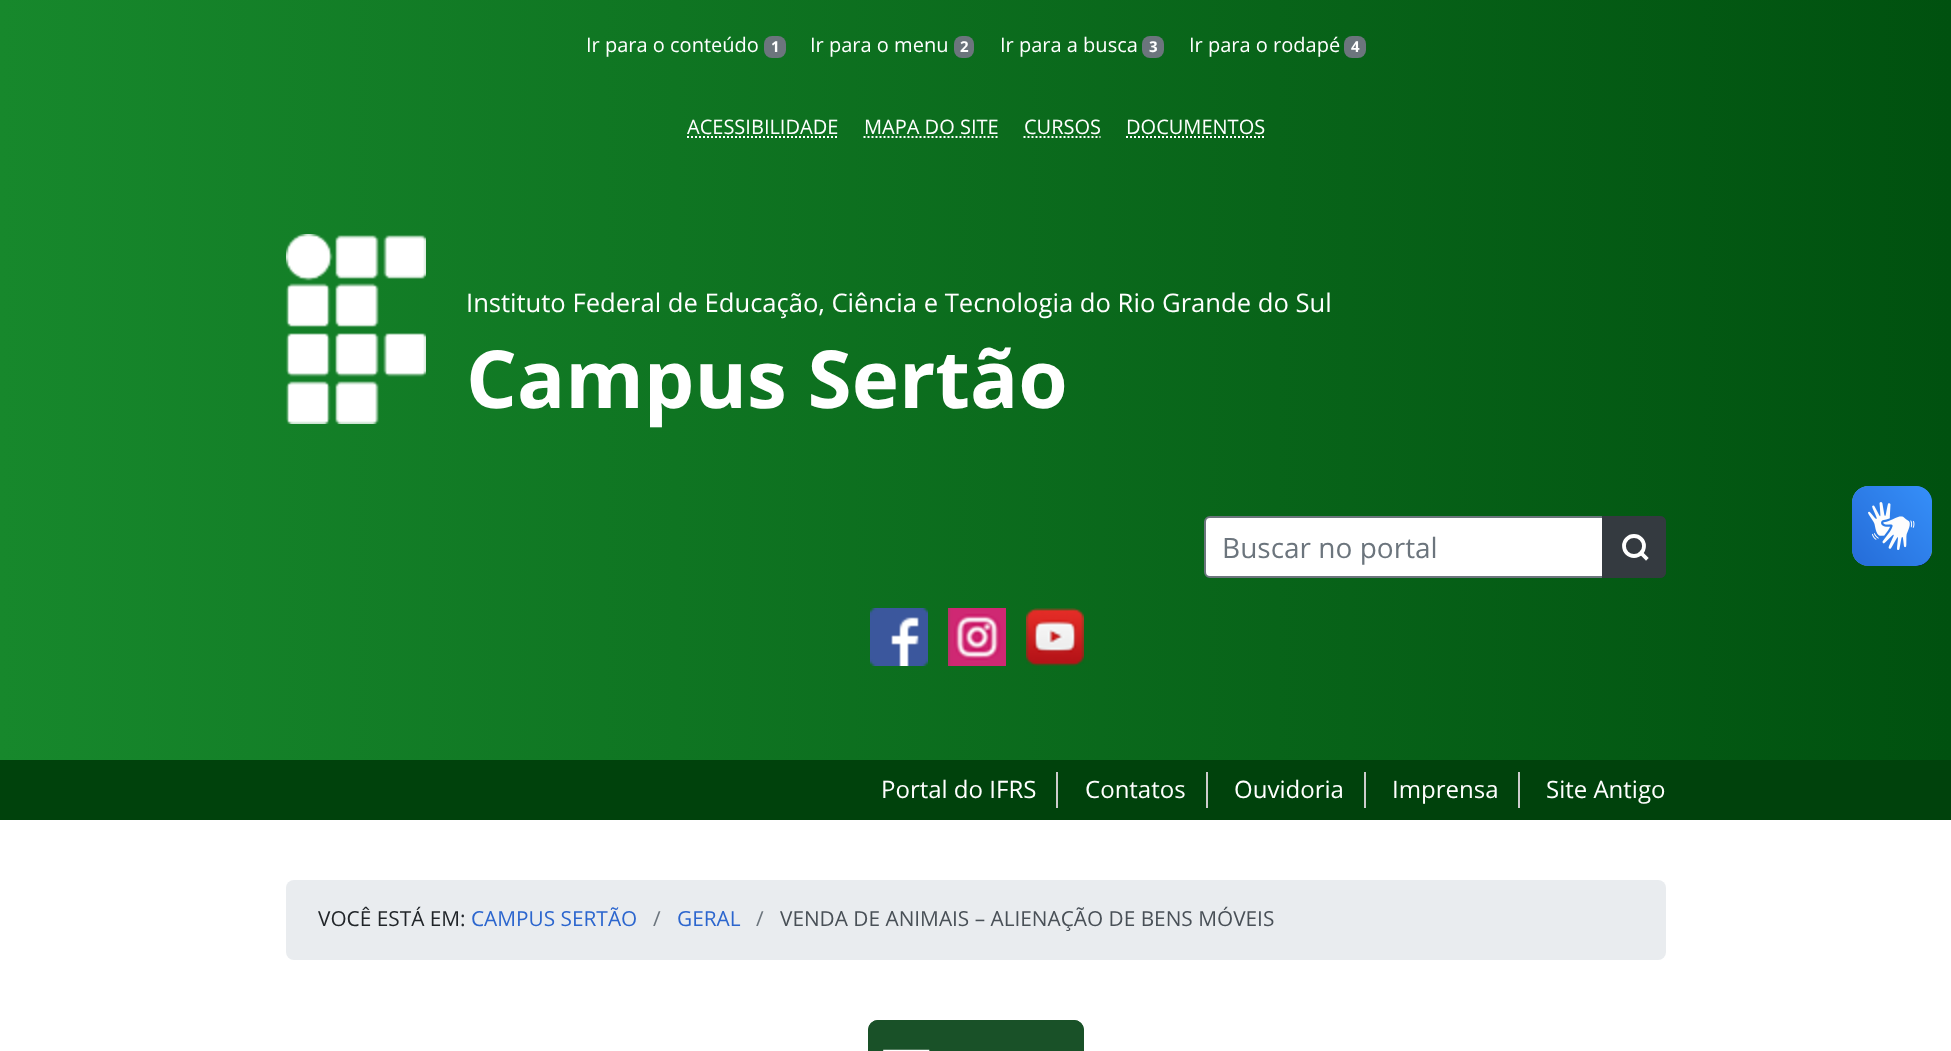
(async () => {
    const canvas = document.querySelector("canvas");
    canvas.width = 1951;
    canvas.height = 1051;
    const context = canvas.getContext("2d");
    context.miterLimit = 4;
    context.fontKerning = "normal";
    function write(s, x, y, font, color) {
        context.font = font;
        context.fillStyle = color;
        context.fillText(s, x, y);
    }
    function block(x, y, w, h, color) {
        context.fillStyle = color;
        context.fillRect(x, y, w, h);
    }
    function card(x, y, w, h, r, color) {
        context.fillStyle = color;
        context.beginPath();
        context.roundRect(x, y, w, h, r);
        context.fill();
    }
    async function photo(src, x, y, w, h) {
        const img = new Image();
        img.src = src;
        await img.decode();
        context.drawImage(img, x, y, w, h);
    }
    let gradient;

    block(0, 0, 1951, 1051, "rgb(255, 255, 255)");
    gradient = context.createLinearGradient(0, 410, 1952, 410);
    gradient.addColorStop(0, "rgb(23, 136, 44)");
    gradient.addColorStop(1, "rgb(0, 81, 15)");
    context.fillStyle = gradient;
    context.fillRect(0, 0, 1951, 760);
    write("Ir para o conteúdo", 586, 52, "20px Open Sans", "rgb(255, 255, 255)");
    card(764, 36, 22, 22, 8, "rgb(108, 117, 125)");
    write("1", 771, 52, "bold 15px Open Sans", "rgb(255, 255, 255)");
    write("Ir para o menu", 810, 52, "20px Open Sans", "rgb(255, 255, 255)");
    card(954, 36, 20, 22, 8, "rgb(108, 117, 125)");
    write("2", 960, 52, "bold 15px Open Sans", "rgb(255, 255, 255)");
    write("Ir para a busca", 1000, 52, "20px Open Sans", "rgb(255, 255, 255)");
    card(1142, 36, 22, 22, 8, "rgb(108, 117, 125)");
    write("3", 1149, 52, "bold 15px Open Sans", "rgb(255, 255, 255)");
    write("Ir para o rodapé", 1189, 52, "20px Open Sans", "rgb(255, 255, 255)");
    card(1344, 36, 22, 22, 8, "rgb(108, 117, 125)");
    write("4", 1351, 52, "bold 15px Open Sans", "rgb(255, 255, 255)");
    write("ACESSIBILIDADE", 687, 134, "20px Open Sans", "rgb(255, 255, 255)");
    context.beginPath();
    context.moveTo(687, 137);
    context.lineTo(838.5, 137);
    context.strokeStyle = "rgb(255, 255, 255)";
    context.lineWidth = 2;
    context.setLineDash([2, 2]);
    context.stroke();
    write("MAPA DO SITE", 864, 134, "20px Open Sans", "rgb(255, 255, 255)");
    context.beginPath();
    context.moveTo(863.5, 137);
    context.lineTo(998.5, 137);
    context.stroke();
    write("CURSOS", 1024, 134, "20px Open Sans", "rgb(255, 255, 255)");
    context.beginPath();
    context.moveTo(1023.5, 137);
    context.lineTo(1100.5, 137);
    context.stroke();
    write("DOCUMENTOS", 1126, 134, "20px Open Sans", "rgb(255, 255, 255)");
    context.beginPath();
    context.moveTo(1126, 137);
    context.lineTo(1265, 137);
    context.stroke();
    await photo("media/1.png", 286, 234, 140, 190);
    write("Instituto Federal de Educação, Ciência e Tecnologia do Rio Grande do Sul", 466, 312, "25.6px Open Sans", "rgb(255, 255, 255)");
    write("Campus Sertão", 466, 408, "bold 80px Open Sans", "rgb(255, 255, 255)");
    context.beginPath();
    context.roundRect(1205, 517, 398, 60, [5, 0, 0, 5]);
    context.fill();
    context.strokeStyle = "rgb(108, 117, 125)";
    context.setLineDash([]);
    context.stroke();
    write("Buscar no portal", 1222, 558, "28px Open Sans", "rgb(108, 117, 125)");
    context.fillStyle = "rgb(52, 58, 64)";
    context.beginPath();
    context.roundRect(1602, 516, 64, 62, [0, 6, 6, 0]);
    context.fill();
    context.beginPath();
    context.arc(1634, 546, 10, 0, Math.PI * 2);
    context.strokeStyle = "rgb(255, 255, 255)";
    context.lineWidth = 3.8;
    context.stroke();
    context.beginPath();
    context.moveTo(1646, 558);
    context.lineTo(1641, 553);
    context.lineCap = "square";
    context.stroke();
    context.beginPath();
    context.roundRect(1603, 517, 62, 60, [0, 5, 5, 0]);
    context.strokeStyle = "rgb(52, 58, 64)";
    context.lineWidth = 2;
    context.stroke();
    await photo("media/2.png", 870, 608, 58, 58);
    await photo("media/3.png", 948, 608, 58, 58);
    await photo("media/4.png", 1026, 608, 58, 58);
    block(0, 760, 1951, 60, "rgb(0, 66, 12)");
    block(1056, 772, 2, 36, "rgb(204, 204, 204)");
    write("Portal do IFRS", 881, 798, "24px Open Sans", "rgb(255, 255, 255)");
    block(1206, 772, 2, 36, "rgb(204, 204, 204)");
    write("Contatos", 1085, 798, "24px Open Sans", "rgb(255, 255, 255)");
    block(1364, 772, 2, 36, "rgb(204, 204, 204)");
    write("Ouvidoria", 1234, 798, "24px Open Sans", "rgb(255, 255, 255)");
    block(1518, 772, 2, 36, "rgb(204, 204, 204)");
    write("Imprensa", 1392, 798, "24px Open Sans", "rgb(255, 255, 255)");
    write("Site Antigo", 1546, 798, "24px Open Sans", "rgb(255, 255, 255)");
    await photo("media/5.png", 1852, 486, 80, 80);
    await photo("media/6.png", 1852, 486, 80, 80);
    card(286, 880, 1380, 80, 8, "rgb(233, 236, 239)");
    write("VOCÊ ESTÁ EM:", 318, 926, "20.8px Open Sans", "rgb(33, 37, 41)");
    write("CAMPUS SERTÃO", 471, 926, "20.8px Open Sans", "rgb(44, 102, 206)");
    write("/", 653, 926, "20.8px Open Sans", "rgb(108, 117, 125)");
    write("GERAL", 677, 926, "20.8px Open Sans", "rgb(44, 102, 206)");
    write("/", 756, 926, "20.8px Open Sans", "rgb(108, 117, 125)");
    write("VENDA DE ANIMAIS – ALIENAÇÃO DE BENS MÓVEIS", 780, 926, "20.8px Open Sans", "rgb(73, 80, 87)");
    card(868, 1020, 216, 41, 10, "rgb(25, 81, 40)");
    context.beginPath();
    context.moveTo(886.5, 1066);
    context.lineTo(926, 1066);
    context.moveTo(886.5, 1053);
    context.lineTo(926, 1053);
    context.moveTo(886.5, 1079.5);
    context.lineTo(926, 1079.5);
    context.strokeStyle = "rgb(255, 255, 255)";
    context.lineWidth = 6.6;
    context.stroke();
    context.beginPath();
    context.roundRect(869, 1021, 214, 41, 9);
    context.strokeStyle = "rgb(25, 81, 40)";
    context.lineWidth = 2;
    context.stroke();
})();
